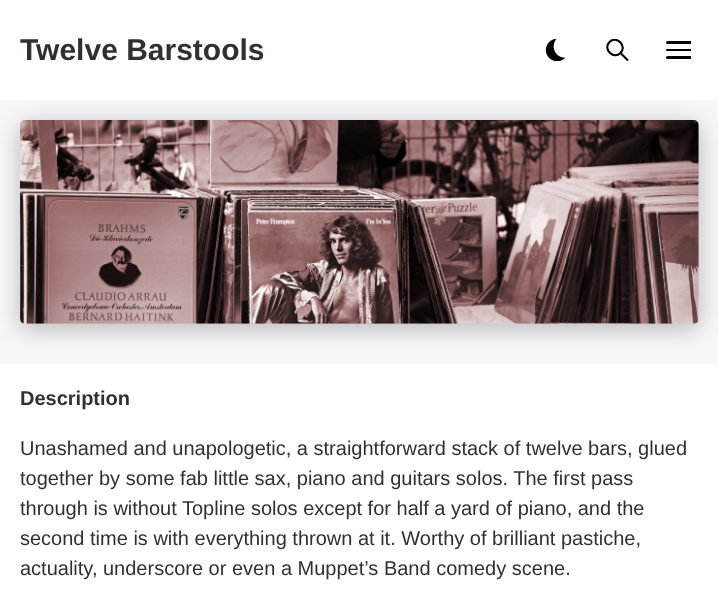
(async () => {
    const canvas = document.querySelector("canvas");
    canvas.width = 718;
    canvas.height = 590;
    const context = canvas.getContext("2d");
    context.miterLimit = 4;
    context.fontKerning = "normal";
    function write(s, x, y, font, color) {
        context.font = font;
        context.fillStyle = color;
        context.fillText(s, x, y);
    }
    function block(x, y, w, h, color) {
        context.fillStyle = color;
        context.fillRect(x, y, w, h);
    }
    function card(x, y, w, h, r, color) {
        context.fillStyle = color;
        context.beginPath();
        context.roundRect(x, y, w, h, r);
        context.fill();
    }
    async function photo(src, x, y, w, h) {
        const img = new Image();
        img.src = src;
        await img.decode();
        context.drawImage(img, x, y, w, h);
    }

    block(0, 0, 718, 590, "rgb(255, 255, 255)");
    write("Twelve Barstools", 20, 60, "bold 30px Liberation Sans", "rgb(46, 49, 51)");
    await photo("media/1.png", 545, 39, 21, 22);
    context.save();
    context.beginPath();
    context.rect(606, 39, 23, 22);
    context.clip();
    context.beginPath();
    context.moveTo(620.5, 53);
    context.bezierCurveTo(613.5, 60, 602.5, 49, 609.5, 42);
    context.bezierCurveTo(616.5, 35, 627.5, 46, 620.5, 53);
    context.lineTo(628, 60.5);
    context.closePath();
    context.strokeStyle = "rgb(0, 0, 0)";
    context.lineWidth = 2.1;
    context.lineCap = "round";
    context.stroke();
    context.restore();
    context.save();
    context.beginPath();
    context.rect(666, 41, 25, 18);
    context.clip();
    card(666, 41, 26, 3, 1.5, "rgb(0, 0, 0)");
    context.restore();
    context.fillStyle = "rgb(0, 0, 0)";
    context.beginPath();
    context.roundRect(666, 49, 25, 2, [1, 0, 0, 1]);
    context.fill();
    context.save();
    context.beginPath();
    context.rect(666, 41, 25, 18);
    context.clip();
    card(666, 56, 26, 3, 1.5, "rgb(0, 0, 0)");
    context.restore();
    block(0, 100, 718, 264, "rgb(247, 247, 250)");
    context.fillStyle = "rgba(0, 0, 0, 0.25)";
    context.filter = "blur(12.5px)";
    context.beginPath();
    context.roundRect(20, 125, 679, 204, 5);
    context.fill();
    context.filter = "none";
    await photo("media/2.png", 20, 120, 679, 204);
    write("Description", 20, 405, "bold 20px Liberation Sans", "rgb(46, 49, 51)");
    write("Unashamed and unapologetic, a straightforward stack of twelve bars, glued", 20, 455, "20px Liberation Sans", "rgb(46, 49, 51)");
    write("together by some fab little sax, piano and guitars solos. The first pass", 20, 485, "20px Liberation Sans", "rgb(46, 49, 51)");
    write("through is without Topline solos except for half a yard of piano, and the", 20, 515, "20px Liberation Sans", "rgb(46, 49, 51)");
    write("second time is with everything thrown at it. Worthy of brilliant pastiche,", 20, 545, "20px Liberation Sans", "rgb(46, 49, 51)");
    write("actuality, underscore or even a Muppet’s Band comedy scene.", 20, 575, "20px Liberation Sans", "rgb(46, 49, 51)");
})();
